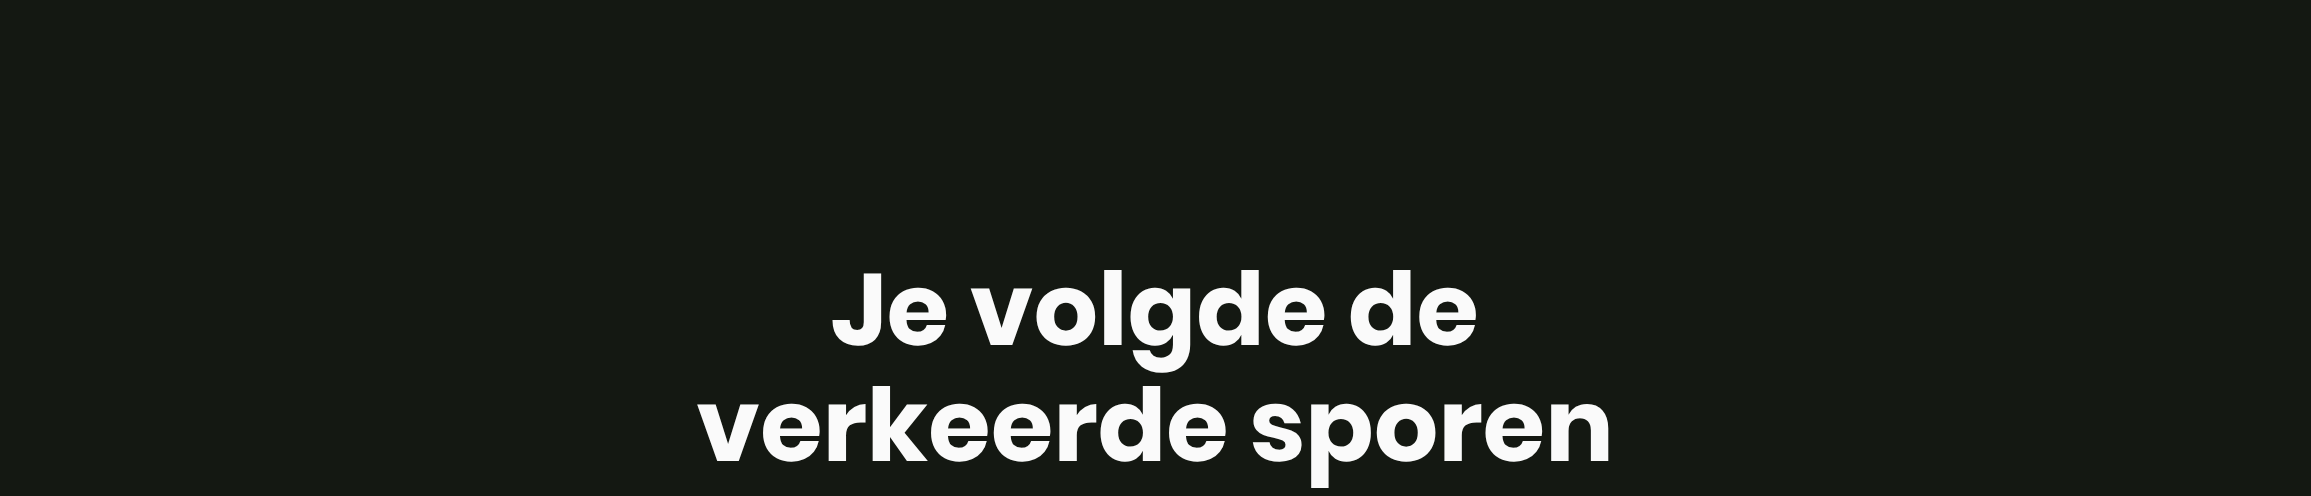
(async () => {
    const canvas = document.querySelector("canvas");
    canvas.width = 2311;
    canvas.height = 496;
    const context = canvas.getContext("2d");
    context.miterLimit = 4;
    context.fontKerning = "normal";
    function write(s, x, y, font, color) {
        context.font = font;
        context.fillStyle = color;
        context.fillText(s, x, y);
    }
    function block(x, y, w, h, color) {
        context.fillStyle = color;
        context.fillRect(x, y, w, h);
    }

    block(0, 0, 2311, 496, "rgb(20, 24, 18)");
    write("Je volgde de", 831, 345, "bold 101.25px Poppins", "rgb(250, 250, 250)");
    write("verkeerde sporen", 696, 461, "bold 101.25px Poppins", "rgb(250, 250, 250)");
})();
